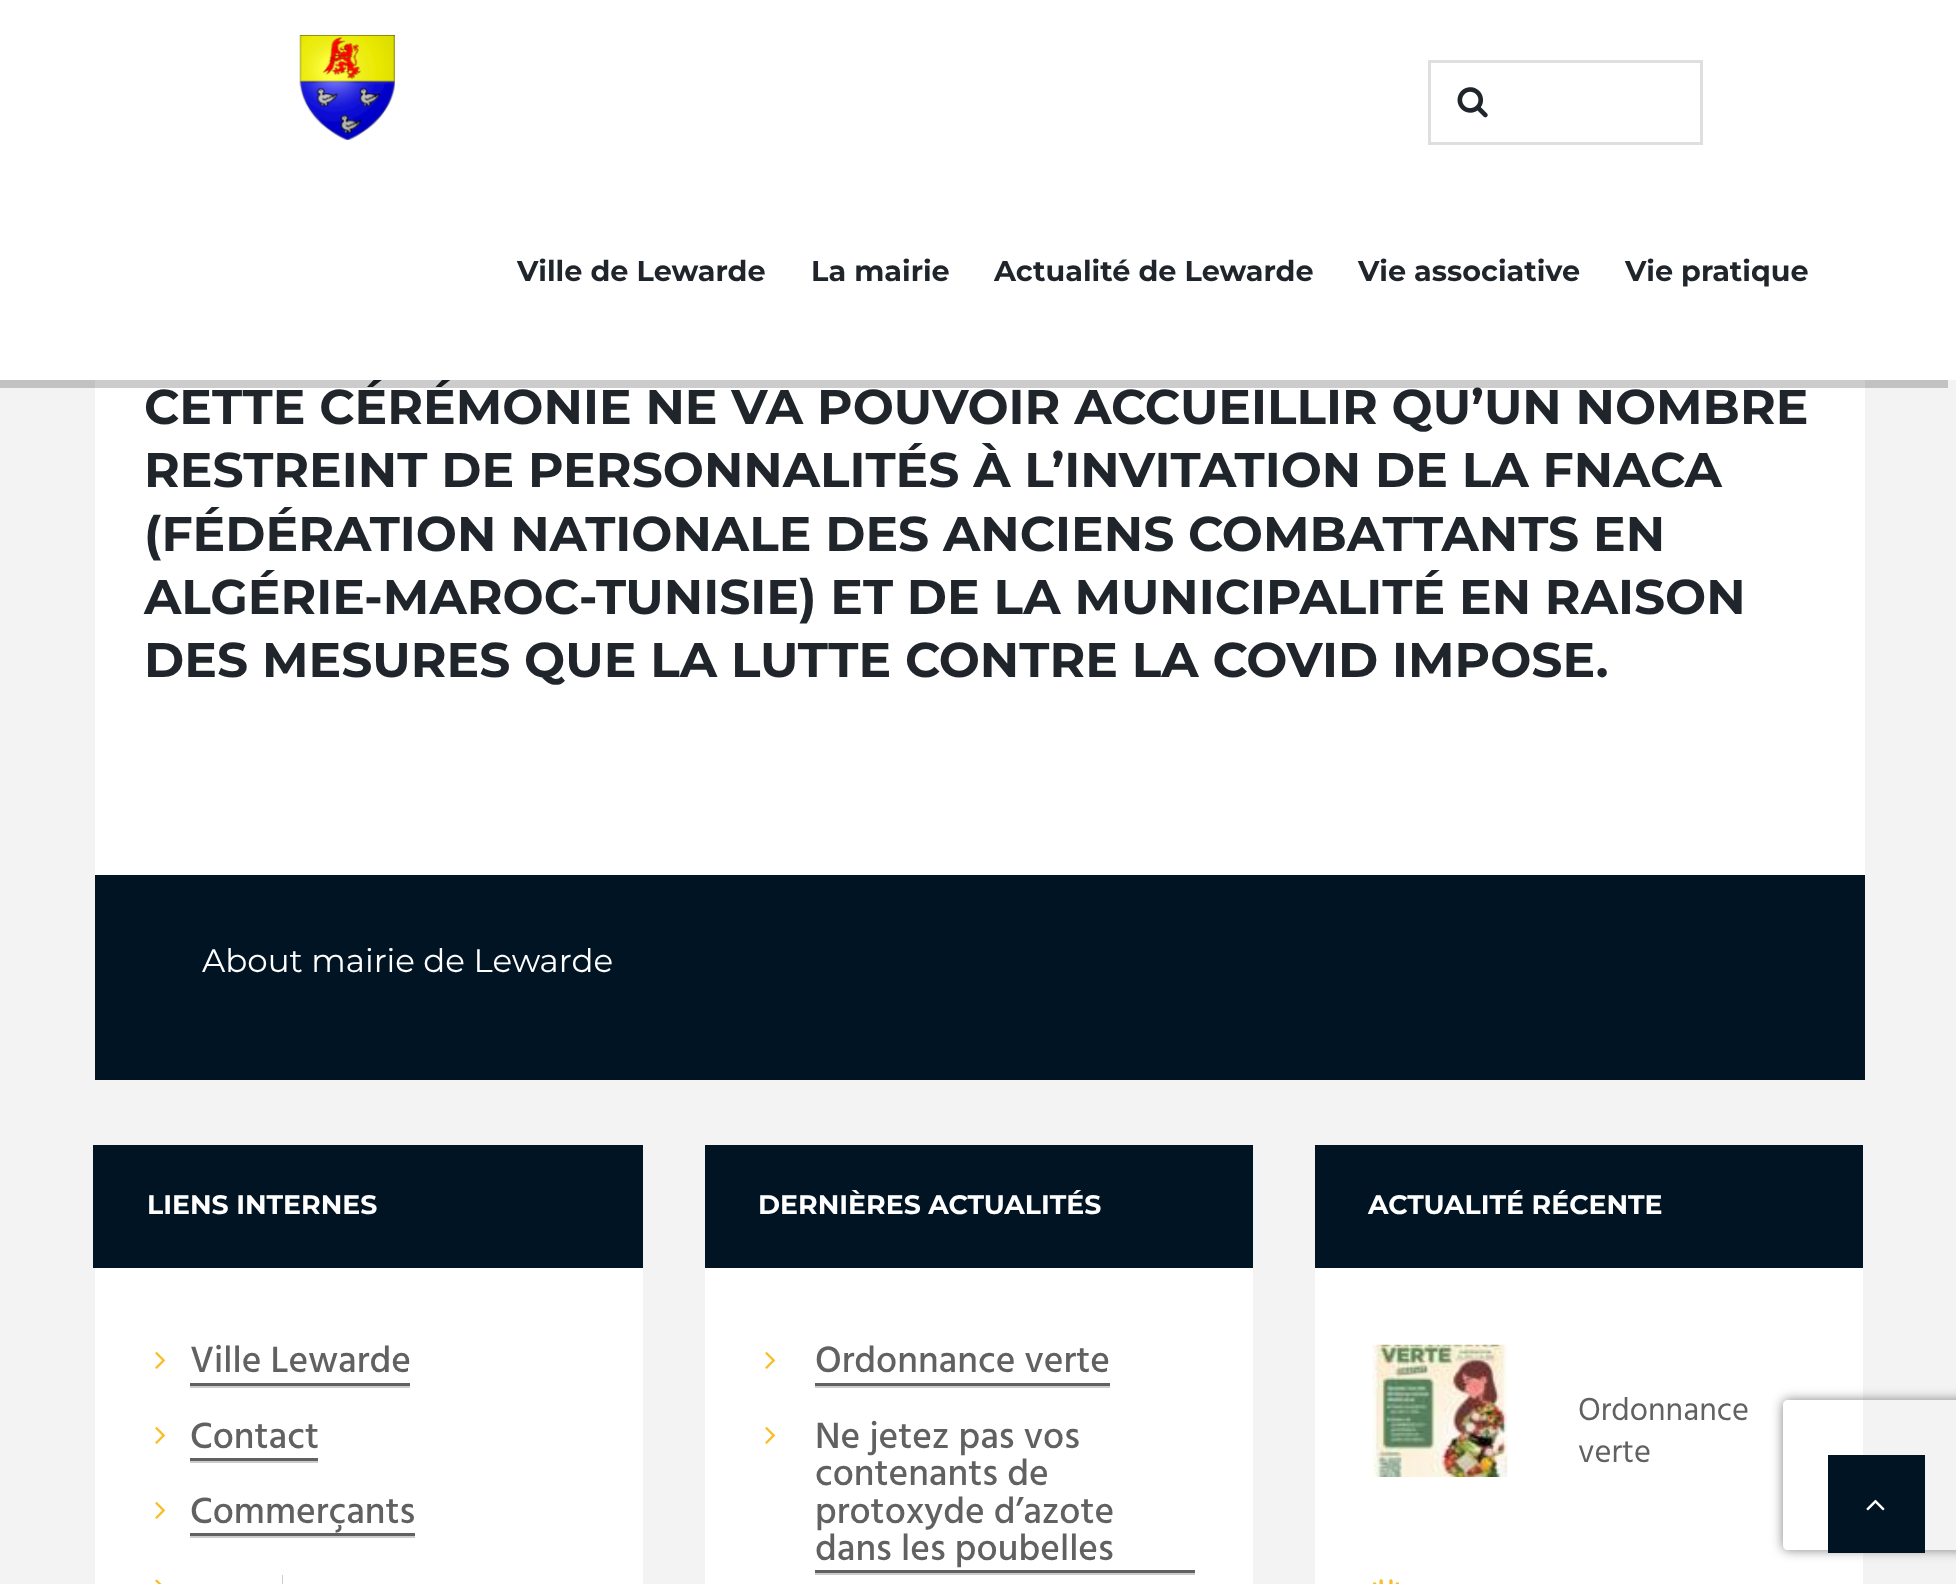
(async () => {
    const canvas = document.querySelector("canvas");
    canvas.width = 1956;
    canvas.height = 1584;
    const context = canvas.getContext("2d");
    context.miterLimit = 4;
    context.fontKerning = "normal";
    function write(s, x, y, font, color) {
        context.font = font;
        context.fillStyle = color;
        context.fillText(s, x, y);
    }
    function block(x, y, w, h, color) {
        context.fillStyle = color;
        context.fillRect(x, y, w, h);
    }
    async function photo(src, x, y, w, h) {
        const img = new Image();
        img.src = src;
        await img.decode();
        context.drawImage(img, x, y, w, h);
    }

    block(0, 0, 1956, 1584, "rgb(243, 243, 243)");
    block(95, 380, 1770, 495, "rgb(255, 255, 255)");
    write("CETTE CÉRÉMONIE NE VA POUVOIR ACCUEILLIR QU’UN NOMBRE", 144, 424, "bold 48.75px Montserrat", "rgb(31, 37, 43)");
    context.fillStyle = "rgba(0, 0, 0, 0.2)";
    context.beginPath();
    context.moveTo(-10, 8);
    context.lineTo(-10, 388);
    context.lineTo(1948, 388);
    context.lineTo(1948, 380);
    context.lineTo(0, 380);
    context.lineTo(0, 8);
    context.closePath();
    context.fill();
    block(0, 0, 1956, 380, "rgb(255, 255, 255)");
    await photo("media/1.png", 299, 35, 96, 105);
    context.strokeStyle = "rgb(223, 223, 223)";
    context.lineWidth = 3;
    context.strokeRect(1429.5, 61.5, 272, 82);
    await photo("media/2.png", 1457, 87, 31, 31);
    write("Ville de Lewarde", 517, 281, "bold 28.7px Montserrat", "rgb(31, 37, 43)");
    write("La mairie", 811, 281, "bold 28.7px Montserrat", "rgb(31, 37, 43)");
    write("Actualité de Lewarde", 994, 281, "bold 28.7px Montserrat", "rgb(31, 37, 43)");
    write("Vie associative", 1358, 281, "bold 28.7px Montserrat", "rgb(31, 37, 43)");
    write("Vie pratique", 1625, 281, "bold 28.7px Montserrat", "rgb(31, 37, 43)");
    write("RESTREINT DE PERSONNALITÉS À L’INVITATION DE LA FNACA", 144, 487, "bold 48.75px Montserrat", "rgb(31, 37, 43)");
    write("(FÉDÉRATION NATIONALE DES ANCIENS COMBATTANTS EN", 144, 551, "bold 48.75px Montserrat", "rgb(31, 37, 43)");
    write("ALGÉRIE-MAROC-TUNISIE) ET DE LA MUNICIPALITÉ EN RAISON", 144, 614, "bold 48.75px Montserrat", "rgb(31, 37, 43)");
    write("DES MESURES QUE LA LUTTE CONTRE LA COVID IMPOSE.", 144, 677, "bold 48.75px Montserrat", "rgb(31, 37, 43)");
    block(95, 875, 1770, 205, "rgb(1, 20, 36)");
    write("About mairie de Lewarde", 202, 972, "32.5px Montserrat", "rgb(255, 255, 255)");
    block(95, 1268, 548, 316, "rgb(255, 255, 255)");
    block(93, 1145, 550, 123, "rgb(1, 20, 36)");
    write("LIENS INTERNES", 147, 1214, "bold 26.75px Montserrat", "rgb(255, 255, 255)");
    await photo("media/3.png", 155, 1352, 11, 17);
    block(190, 1386, 220, 2, "rgb(204, 204, 204)");
    block(190, 1383, 220, 3, "rgb(97, 97, 97)");
    write("Ville Lewarde", 190, 1372, "500 37.5px Hind", "rgb(97, 97, 97)");
    await photo("media/3.png", 155, 1427, 11, 17);
    context.fillStyle = "rgb(204, 204, 204)";
    context.beginPath();
    context.moveTo(190, 1460);
    context.lineTo(190, 1463);
    context.lineTo(318, 1463);
    context.lineTo(318, 1423);
    context.lineTo(318, 1460);
    context.closePath();
    context.fill();
    block(190, 1458, 128, 3, "rgb(97, 97, 97)");
    write("Contact", 190, 1448, "500 37.5px Hind", "rgb(97, 97, 97)");
    await photo("media/3.png", 155, 1502, 11, 17);
    block(190, 1536, 225, 2, "rgb(204, 204, 204)");
    block(190, 1533, 225, 3, "rgb(97, 97, 97)");
    write("Commerçants", 190, 1523, "500 37.5px Hind", "rgb(97, 97, 97)");
    await photo("media/4.png", 155, 1579, 7, 5);
    context.fillStyle = "rgb(204, 204, 204)";
    context.beginPath();
    context.moveTo(190, 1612);
    context.lineTo(190, 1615);
    context.lineTo(283, 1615);
    context.lineTo(283, 1575);
    context.lineTo(282, 1575);
    context.lineTo(282, 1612);
    context.closePath();
    context.fill();
    block(705, 1268, 548, 316, "rgb(255, 255, 255)");
    block(705, 1145, 548, 123, "rgb(1, 20, 36)");
    write("DERNIÈRES ACTUALITÉS", 758, 1214, "bold 26.75px Montserrat", "rgb(255, 255, 255)");
    await photo("media/3.png", 765, 1352, 11, 17);
    block(815, 1386, 295, 2, "rgb(204, 204, 204)");
    block(815, 1383, 295, 3, "rgb(97, 97, 97)");
    write("Ordonnance verte", 815, 1372, "500 37.5px Hind", "rgb(97, 97, 97)");
    await photo("media/3.png", 765, 1427, 11, 17);
    block(815, 1573, 380, 2, "rgb(204, 204, 204)");
    block(815, 1570, 380, 3, "rgb(97, 97, 97)");
    write("Ne jetez pas vos", 815, 1448, "500 37.5px Hind", "rgb(97, 97, 97)");
    write("contenants de", 815, 1485, "500 37.5px Hind", "rgb(97, 97, 97)");
    write("protoxyde d’azote", 815, 1523, "500 37.5px Hind", "rgb(97, 97, 97)");
    write("dans les poubelles", 815, 1560, "500 37.5px Hind", "rgb(97, 97, 97)");
    block(1315, 1268, 548, 316, "rgb(255, 255, 255)");
    block(1315, 1145, 548, 123, "rgb(1, 20, 36)");
    write("ACTUALITÉ RÉCENTE", 1368, 1214, "bold 26.75px Montserrat", "rgb(255, 255, 255)");
    await photo("media/5.png", 1372, 1344, 136, 133);
    write("Ordonnance", 1578, 1420, "32.5px Hind", "rgb(97, 97, 97)");
    write("verte", 1578, 1462, "32.5px Hind", "rgb(97, 97, 97)");
    await photo("media/6.png", 1373, 1579, 27, 5);
    context.save();
    context.beginPath();
    context.moveTo(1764, 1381);
    context.lineTo(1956, 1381);
    context.lineTo(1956, 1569);
    context.lineTo(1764, 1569);
    context.closePath();
    context.moveTo(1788, 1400);
    context.lineTo(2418, 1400);
    context.bezierCurveTo(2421, 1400, 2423, 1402, 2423, 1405);
    context.lineTo(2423, 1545);
    context.bezierCurveTo(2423, 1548, 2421, 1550, 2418, 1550);
    context.lineTo(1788, 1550);
    context.bezierCurveTo(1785, 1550, 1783, 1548, 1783, 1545);
    context.lineTo(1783, 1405);
    context.bezierCurveTo(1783, 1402, 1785, 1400, 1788, 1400);
    context.closePath();
    context.clip("evenodd");
    context.fillStyle = "rgb(128, 128, 128)";
    context.filter = "blur(6px)";
    context.beginPath();
    context.roundRect(1783, 1400, 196, 150, 5);
    context.fill();
    context.filter = "none";
    context.restore();
    block(1828, 1455, 97, 98, "rgb(1, 20, 36)");
    await photo("media/7.png", 1866, 1499, 19, 12);
})();
